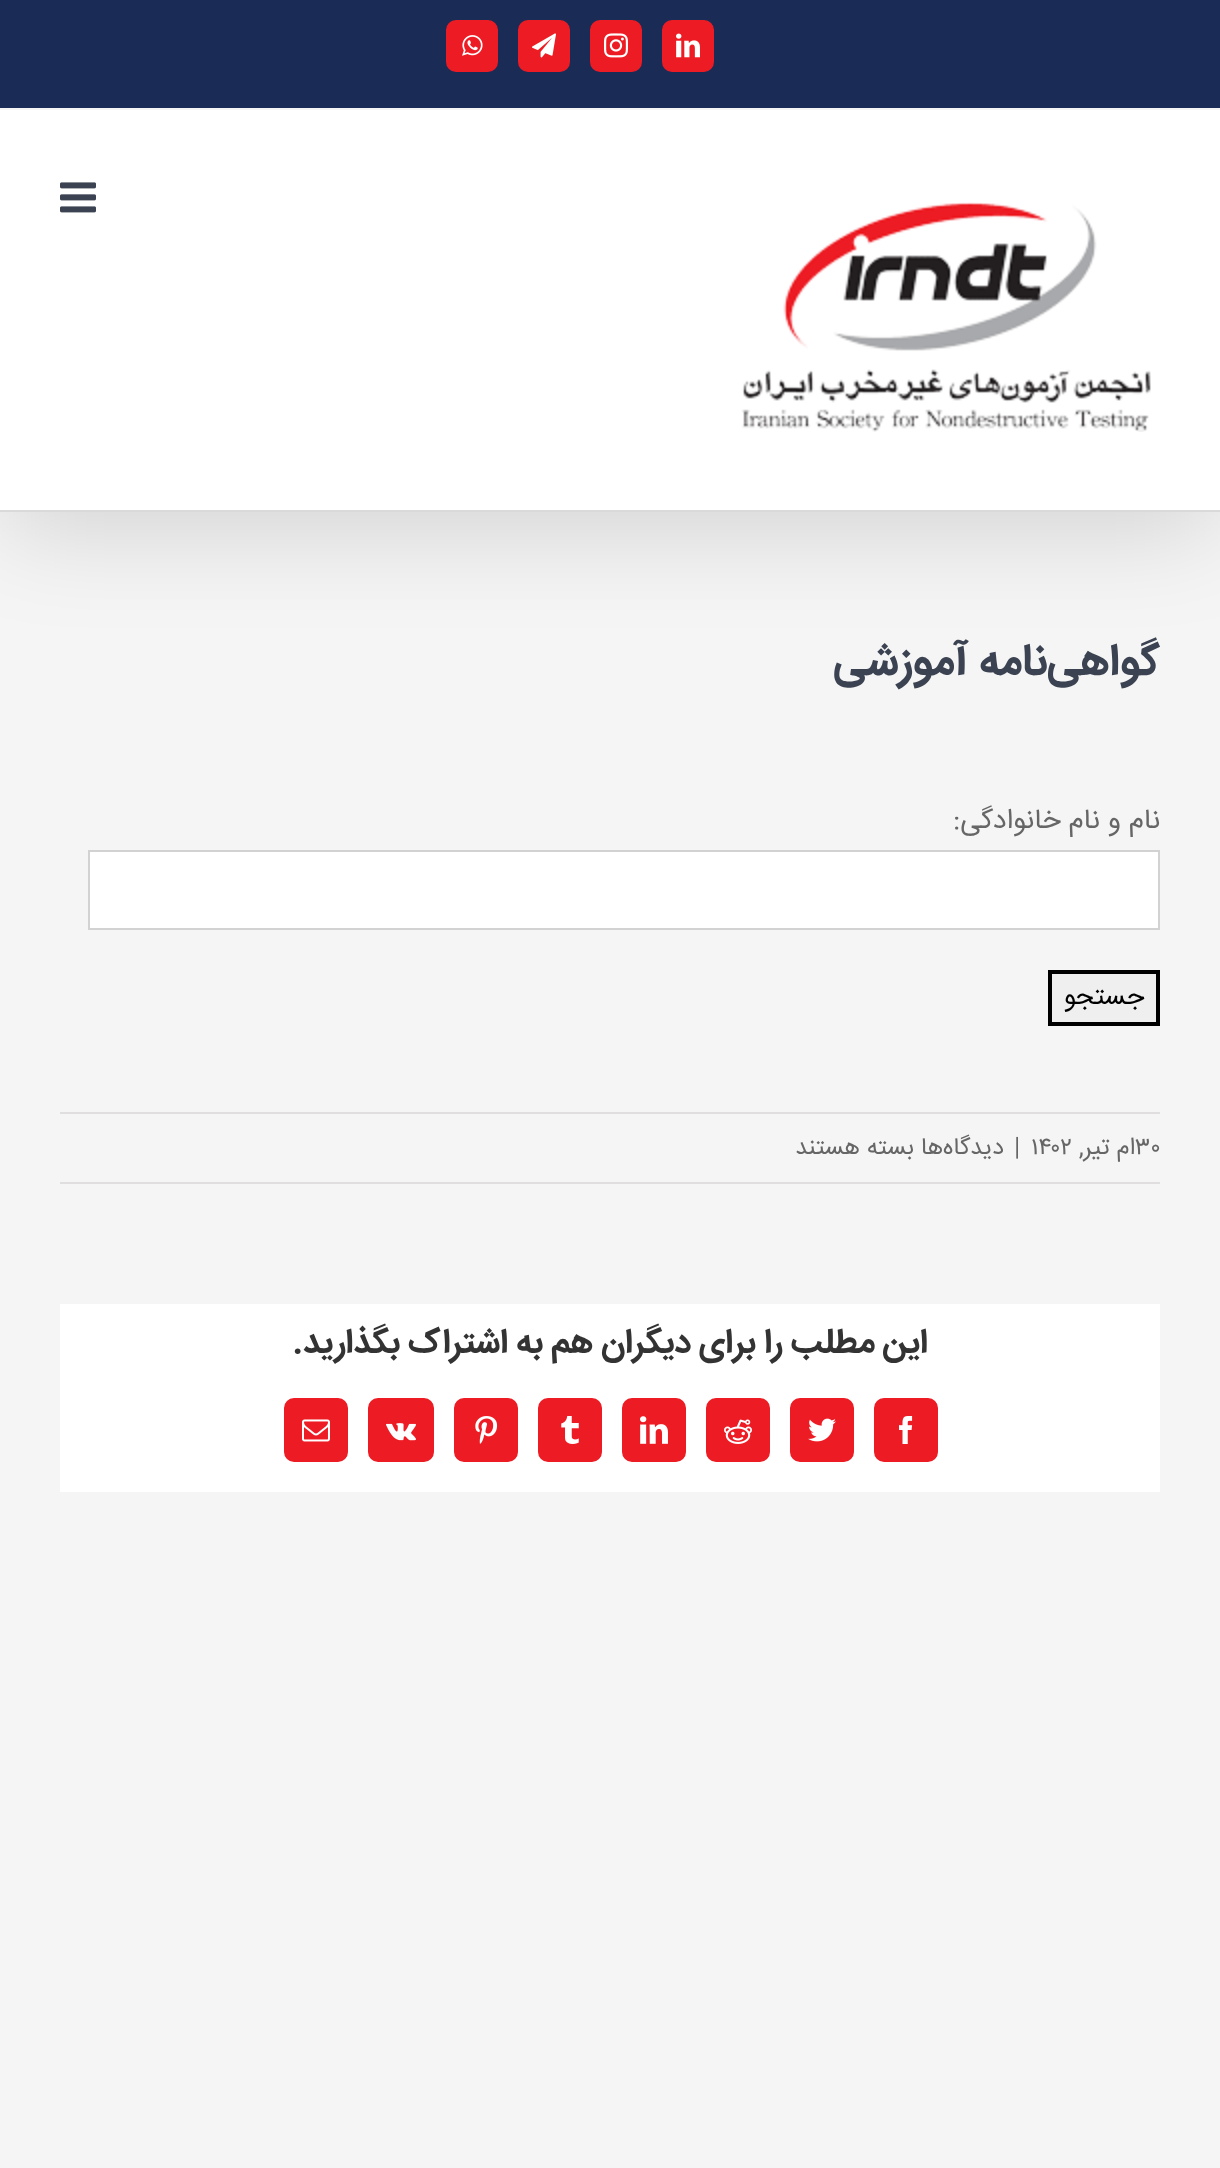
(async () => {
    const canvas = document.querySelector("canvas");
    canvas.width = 1220;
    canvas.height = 2168;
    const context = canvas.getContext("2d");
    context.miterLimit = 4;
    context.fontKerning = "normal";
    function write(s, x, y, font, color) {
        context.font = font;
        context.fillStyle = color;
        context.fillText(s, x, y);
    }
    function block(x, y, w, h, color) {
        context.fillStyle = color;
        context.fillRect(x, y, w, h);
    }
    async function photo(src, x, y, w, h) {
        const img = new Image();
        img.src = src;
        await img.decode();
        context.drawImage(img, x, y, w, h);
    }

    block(0, 0, 1220, 2168, "rgb(245, 245, 245)");
    context.fillStyle = "rgba(0, 0, 0, 0.14)";
    context.filter = "blur(50px)";
    context.beginPath();
    context.rect(4, 24, 1212, 504);
    context.fill();
    context.filter = "none";
    block(0, 0, 1220, 108, "rgb(26, 43, 86)");
    block(0, 108, 1220, 2, "rgb(245, 245, 245)");
    context.fillStyle = "rgb(237, 28, 36)";
    context.beginPath();
    context.roundRect(663, 21, 50, 50, 9);
    context.fill();
    context.strokeStyle = "rgb(237, 28, 36)";
    context.lineWidth = 2;
    context.stroke();
    await photo("media/1.png", 676, 33, 24, 25);
    context.beginPath();
    context.roundRect(591, 21, 50, 50, 9);
    context.fill();
    context.stroke();
    await photo("media/2.png", 604, 33, 24, 25);
    context.beginPath();
    context.roundRect(519, 21, 50, 50, 9);
    context.fill();
    context.stroke();
    await photo("media/3.png", 532, 33, 24, 25);
    context.beginPath();
    context.roundRect(447, 21, 50, 50, 9);
    context.fill();
    context.stroke();
    await photo("media/4.png", 462, 35, 21, 21);
    block(0, 110, 1220, 400, "rgb(255, 255, 255)");
    block(0, 510, 1220, 2, "rgb(217, 217, 217)");
    await photo("media/5.png", 60, 182, 36, 31);
    await photo("media/6.png", 741, 202, 410, 230);
    context.direction = "rtl";
    write("گواهی‌نامه آموزشی", 1160, 674, "bold 44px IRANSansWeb", "rgb(59, 66, 81)");
    write("نام و نام خانوادگی:", 1160, 828, "28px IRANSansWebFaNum", "rgb(102, 102, 102)");
    context.fillStyle = "rgb(255, 255, 255)";
    context.beginPath();
    context.rect(89, 851, 1070, 78);
    context.fill();
    context.strokeStyle = "rgb(210, 210, 210)";
    context.stroke();
    context.fillStyle = "rgb(239, 239, 239)";
    context.beginPath();
    context.rect(1050, 972, 108, 52);
    context.fill();
    context.strokeStyle = "rgb(0, 0, 0)";
    context.lineWidth = 4;
    context.stroke();
    write("جستجو", 1144, 1004, "26.5px IRANSansWebFaNum", "rgb(0, 0, 0)");
    block(60, 1112, 1100, 2, "rgb(224, 222, 222)");
    block(60, 1182, 1100, 2, "rgb(224, 222, 222)");
    context.direction = "ltr";
    write("۳۰", 1135, 1154, "24px IRANSansWebFaNum", "rgb(102, 102, 102)");
    context.direction = "rtl";
    write("ام تیر,", 1135, 1154, "24px IRANSansWebFaNum", "rgb(102, 102, 102)");
    context.direction = "ltr";
    write("۱۴۰۲", 1031, 1154, "24px IRANSansWebFaNum", "rgb(102, 102, 102)");
    write("|", 1014, 1154, "24px IRANSansWebFaNum", "rgb(102, 102, 102)");
    context.direction = "rtl";
    write("دیدگاه‌ها", 1004, 1154, "24px IRANSansWebFaNum", "rgb(102, 102, 102)");
    write("بسته هستند", 914, 1154, "24px IRANSansWebFaNum", "rgb(102, 102, 102)");
    block(60, 1304, 1100, 188, "rgb(255, 255, 255)");
    write("این مطلب را برای دیگران هم به اشتراک بگذارید.", 928, 1352, "bold 34px IRANSansWeb", "rgb(51, 51, 51)");
    context.fillStyle = "rgb(237, 28, 36)";
    context.beginPath();
    context.roundRect(875, 1399, 62, 62, 9);
    context.fill();
    context.strokeStyle = "rgb(237, 28, 36)";
    context.lineWidth = 2;
    context.stroke();
    await photo("media/7.png", 899, 1416, 14, 28);
    context.beginPath();
    context.roundRect(791, 1399, 62, 62, 9);
    context.fill();
    context.stroke();
    await photo("media/8.png", 808, 1418, 28, 24);
    context.beginPath();
    context.roundRect(707, 1399, 62, 62, 9);
    context.fill();
    context.stroke();
    await photo("media/9.png", 724, 1419, 28, 25);
    context.beginPath();
    context.roundRect(623, 1399, 62, 62, 9);
    context.fill();
    context.stroke();
    await photo("media/10.png", 640, 1416, 28, 28);
    context.beginPath();
    context.roundRect(539, 1399, 62, 62, 9);
    context.fill();
    context.stroke();
    await photo("media/11.png", 561, 1416, 18, 28);
    context.beginPath();
    context.roundRect(455, 1399, 62, 62, 9);
    context.fill();
    context.stroke();
    await photo("media/12.png", 475, 1416, 23, 28);
    context.beginPath();
    context.roundRect(369, 1399, 64, 62, 9);
    context.fill();
    context.stroke();
    await photo("media/13.png", 386, 1423, 30, 18);
    context.beginPath();
    context.roundRect(285, 1399, 62, 62, 9);
    context.fill();
    context.stroke();
    await photo("media/14.png", 302, 1419, 28, 23);
})();
